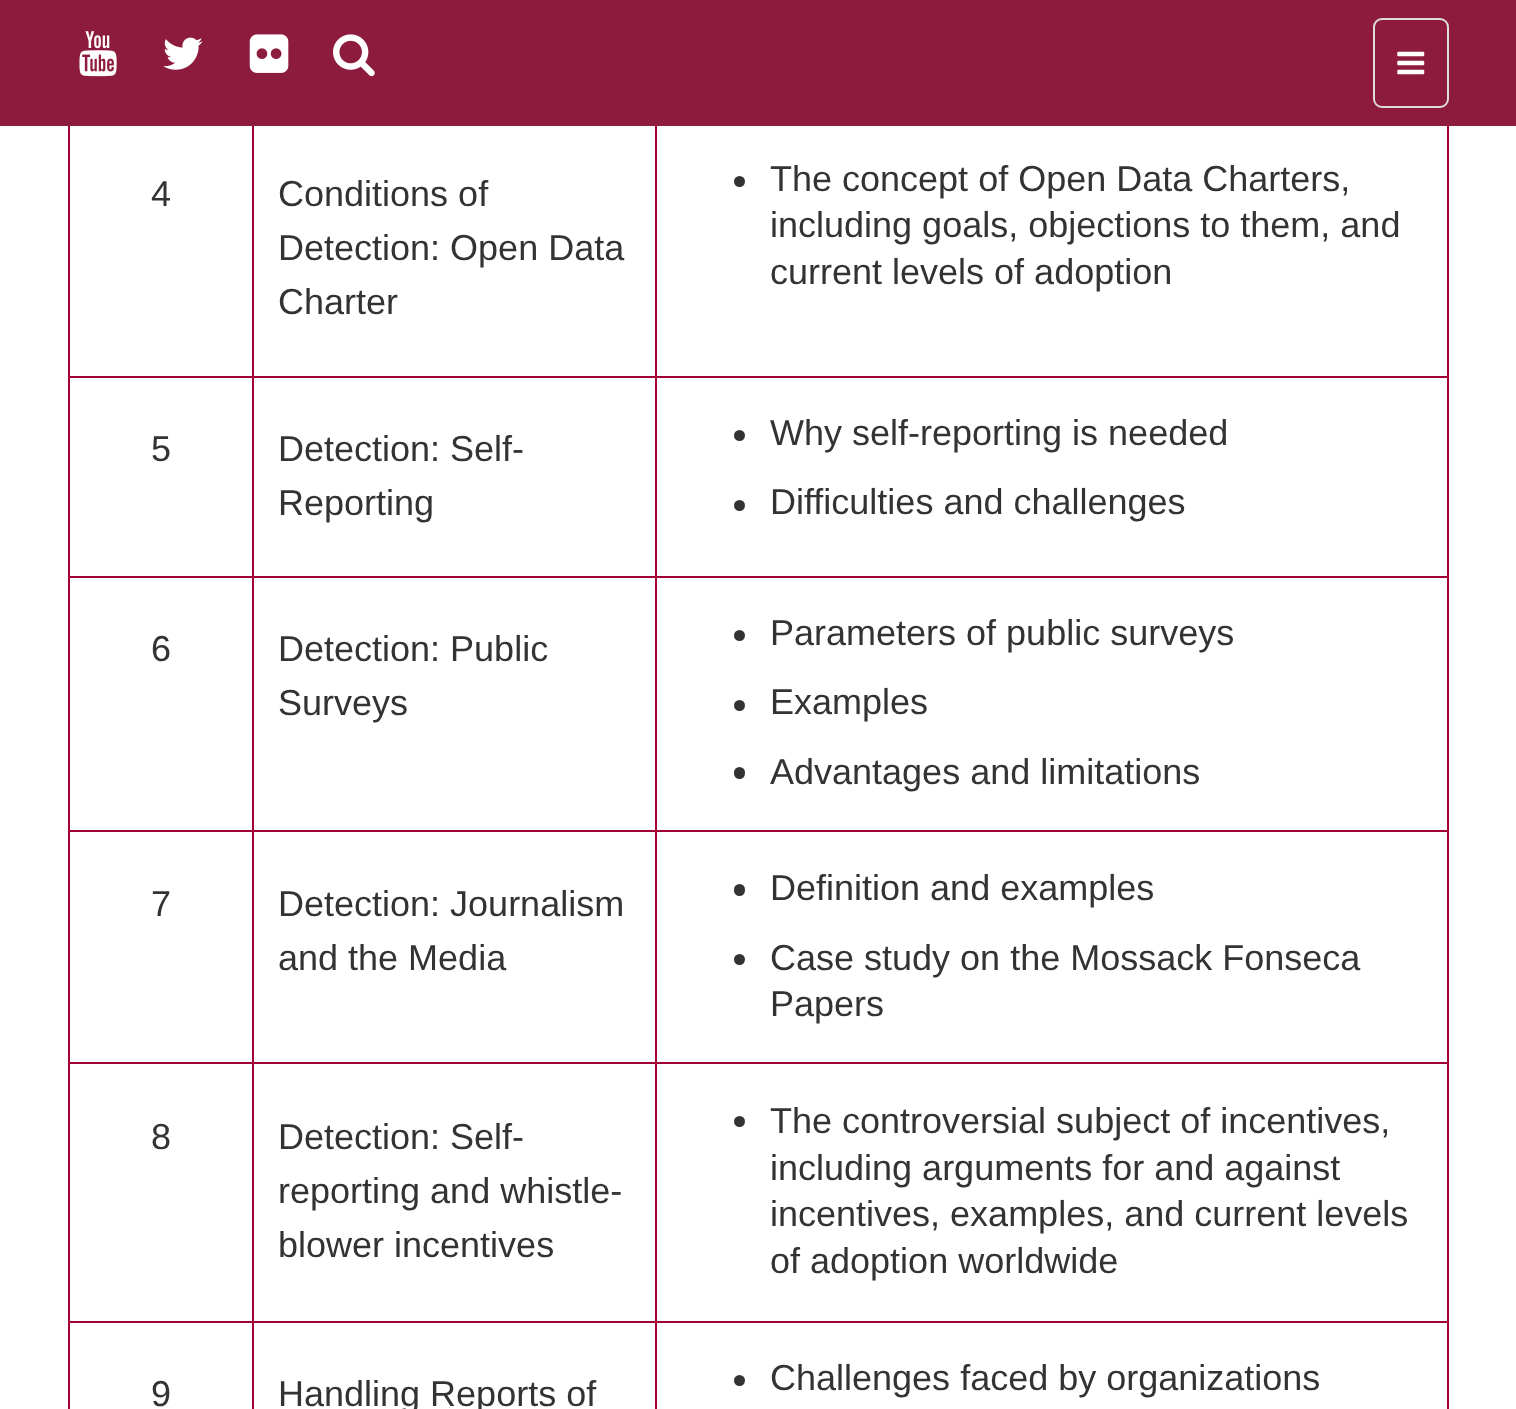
(async () => {
    const canvas = document.querySelector("canvas");
    canvas.width = 1516;
    canvas.height = 1409;
    const context = canvas.getContext("2d");
    context.miterLimit = 4;
    context.fontKerning = "normal";
    function write(s, x, y, font, color) {
        context.font = font;
        context.fillStyle = color;
        context.fillText(s, x, y);
    }
    function block(x, y, w, h, color) {
        context.fillStyle = color;
        context.fillRect(x, y, w, h);
    }
    function card(x, y, w, h, r, color) {
        context.fillStyle = color;
        context.beginPath();
        context.roundRect(x, y, w, h, r);
        context.fill();
    }
    async function photo(src, x, y, w, h) {
        const img = new Image();
        img.src = src;
        await img.decode();
        context.drawImage(img, x, y, w, h);
    }

    block(0, 0, 1516, 1409, "rgb(255, 255, 255)");
    block(68, 126, 2, 1283, "rgb(163, 1, 52)");
    block(1447, 126, 2, 1283, "rgb(163, 1, 52)");
    block(655, 376, 794, 2, "rgb(163, 1, 52)");
    block(655, 576, 794, 2, "rgb(163, 1, 52)");
    block(655, 830, 794, 2, "rgb(163, 1, 52)");
    block(655, 1062, 794, 2, "rgb(163, 1, 52)");
    block(655, 1321, 794, 2, "rgb(163, 1, 52)");
    block(655, 1321, 2, 88, "rgb(163, 1, 52)");
    block(252, 1321, 405, 2, "rgb(163, 1, 52)");
    block(655, 1062, 2, 261, "rgb(163, 1, 52)");
    block(252, 1062, 405, 2, "rgb(163, 1, 52)");
    block(655, 830, 2, 234, "rgb(163, 1, 52)");
    block(252, 830, 405, 2, "rgb(163, 1, 52)");
    block(655, 576, 2, 257, "rgb(163, 1, 52)");
    block(252, 576, 405, 2, "rgb(163, 1, 52)");
    block(655, 376, 2, 202, "rgb(163, 1, 52)");
    block(252, 376, 405, 2, "rgb(163, 1, 52)");
    block(252, 1321, 2, 88, "rgb(163, 1, 52)");
    block(68, 1321, 186, 2, "rgb(163, 1, 52)");
    block(252, 1062, 2, 261, "rgb(163, 1, 52)");
    block(68, 1062, 186, 2, "rgb(163, 1, 52)");
    block(252, 830, 2, 234, "rgb(163, 1, 52)");
    block(68, 830, 186, 2, "rgb(163, 1, 52)");
    block(252, 576, 2, 257, "rgb(163, 1, 52)");
    block(68, 576, 186, 2, "rgb(163, 1, 52)");
    block(252, 376, 2, 202, "rgb(163, 1, 52)");
    block(68, 376, 186, 2, "rgb(163, 1, 52)");
    block(252, 122, 2, 256, "rgb(163, 1, 52)");
    block(655, 122, 2, 256, "rgb(163, 1, 52)");
    block(0, 0, 1516, 126, "rgb(141, 27, 61)");
    await photo("media/1.png", 79, 31, 38, 46);
    await photo("media/2.png", 163, 37, 40, 33);
    await photo("media/3.png", 249, 34, 40, 39);
    await photo("media/4.png", 333, 34, 42, 43);
    context.beginPath();
    context.roundRect(1374, 19, 74, 88, 8);
    context.strokeStyle = "rgb(221, 221, 221)";
    context.lineWidth = 2;
    context.stroke();
    await photo("media/5.png", 1397, 51, 28, 24);
    write("4", 151, 206, "36px Liberation Sans", "rgb(51, 51, 51)");
    write("Conditions of", 278, 206, "36px Liberation Sans", "rgb(51, 51, 51)");
    write("Detection: Open Data", 278, 260, "36px Liberation Sans", "rgb(51, 51, 51)");
    write("Charter", 278, 314, "36px Liberation Sans", "rgb(51, 51, 51)");
    context.beginPath();
    context.arc(739.5, 181.5, 5.5, 0, Math.PI * 2);
    context.fill();
    write("The concept of Open Data Charters,", 770, 191, "36px Liberation Sans", "rgb(51, 51, 51)");
    write("including goals, objections to them, and", 770, 237, "36px Liberation Sans", "rgb(51, 51, 51)");
    write("current levels of adoption", 770, 284, "36px Liberation Sans", "rgb(51, 51, 51)");
    write("5", 151, 461, "36px Liberation Sans", "rgb(51, 51, 51)");
    write("Detection: Self-", 278, 461, "36px Liberation Sans", "rgb(51, 51, 51)");
    write("Reporting", 278, 515, "36px Liberation Sans", "rgb(51, 51, 51)");
    context.beginPath();
    context.arc(739.5, 435.5, 5.5, 0, Math.PI * 2);
    context.fill();
    write("Why self-reporting is needed", 770, 445, "36px Liberation Sans", "rgb(51, 51, 51)");
    context.beginPath();
    context.arc(739.5, 505.5, 5.5, 0, Math.PI * 2);
    context.fill();
    write("Difficulties and challenges", 770, 514, "36px Liberation Sans", "rgb(51, 51, 51)");
    write("6", 151, 661, "36px Liberation Sans", "rgb(51, 51, 51)");
    write("Detection: Public", 278, 661, "36px Liberation Sans", "rgb(51, 51, 51)");
    write("Surveys", 278, 715, "36px Liberation Sans", "rgb(51, 51, 51)");
    context.beginPath();
    context.arc(739.5, 635.5, 5.5, 0, Math.PI * 2);
    context.fill();
    write("Parameters of public surveys", 770, 645, "36px Liberation Sans", "rgb(51, 51, 51)");
    context.beginPath();
    context.arc(739.5, 705.5, 5.5, 0, Math.PI * 2);
    context.fill();
    write("Examples", 770, 714, "36px Liberation Sans", "rgb(51, 51, 51)");
    card(734, 767, 11, 12, 5.5, "rgb(51, 51, 51)");
    write("Advantages and limitations", 770, 784, "36px Liberation Sans", "rgb(51, 51, 51)");
    write("7", 151, 916, "36px Liberation Sans", "rgb(51, 51, 51)");
    write("Detection: Journalism", 278, 916, "36px Liberation Sans", "rgb(51, 51, 51)");
    write("and the Media", 278, 970, "36px Liberation Sans", "rgb(51, 51, 51)");
    card(734, 884, 11, 12, 5.5, "rgb(51, 51, 51)");
    write("Definition and examples", 770, 900, "36px Liberation Sans", "rgb(51, 51, 51)");
    context.beginPath();
    context.arc(739.5, 959.5, 5.5, 0, Math.PI * 2);
    context.fill();
    write("Case study on the Mossack Fonseca", 770, 970, "36px Liberation Sans", "rgb(51, 51, 51)");
    write("Papers", 770, 1016, "36px Liberation Sans", "rgb(51, 51, 51)");
    write("8", 151, 1149, "36px Liberation Sans", "rgb(51, 51, 51)");
    write("Detection: Self-", 278, 1149, "36px Liberation Sans", "rgb(51, 51, 51)");
    write("reporting and whistle-", 278, 1203, "36px Liberation Sans", "rgb(51, 51, 51)");
    write("blower incentives", 278, 1257, "36px Liberation Sans", "rgb(51, 51, 51)");
    context.beginPath();
    context.arc(739.5, 1121.5, 5.5, 0, Math.PI * 2);
    context.fill();
    write("The controversial subject of incentives,", 770, 1133, "36px Liberation Sans", "rgb(51, 51, 51)");
    write("including arguments for and against", 770, 1180, "36px Liberation Sans", "rgb(51, 51, 51)");
    write("incentives, examples, and current levels", 770, 1226, "36px Liberation Sans", "rgb(51, 51, 51)");
    write("of adoption worldwide", 770, 1273, "36px Liberation Sans", "rgb(51, 51, 51)");
    write("9", 151, 1406, "36px Liberation Sans", "rgb(51, 51, 51)");
    write("Handling Reports of", 278, 1406, "36px Liberation Sans", "rgb(51, 51, 51)");
    context.beginPath();
    context.arc(739.5, 1380.5, 5.5, 0, Math.PI * 2);
    context.fill();
    write("Challenges faced by organizations", 770, 1390, "36px Liberation Sans", "rgb(51, 51, 51)");
})();
